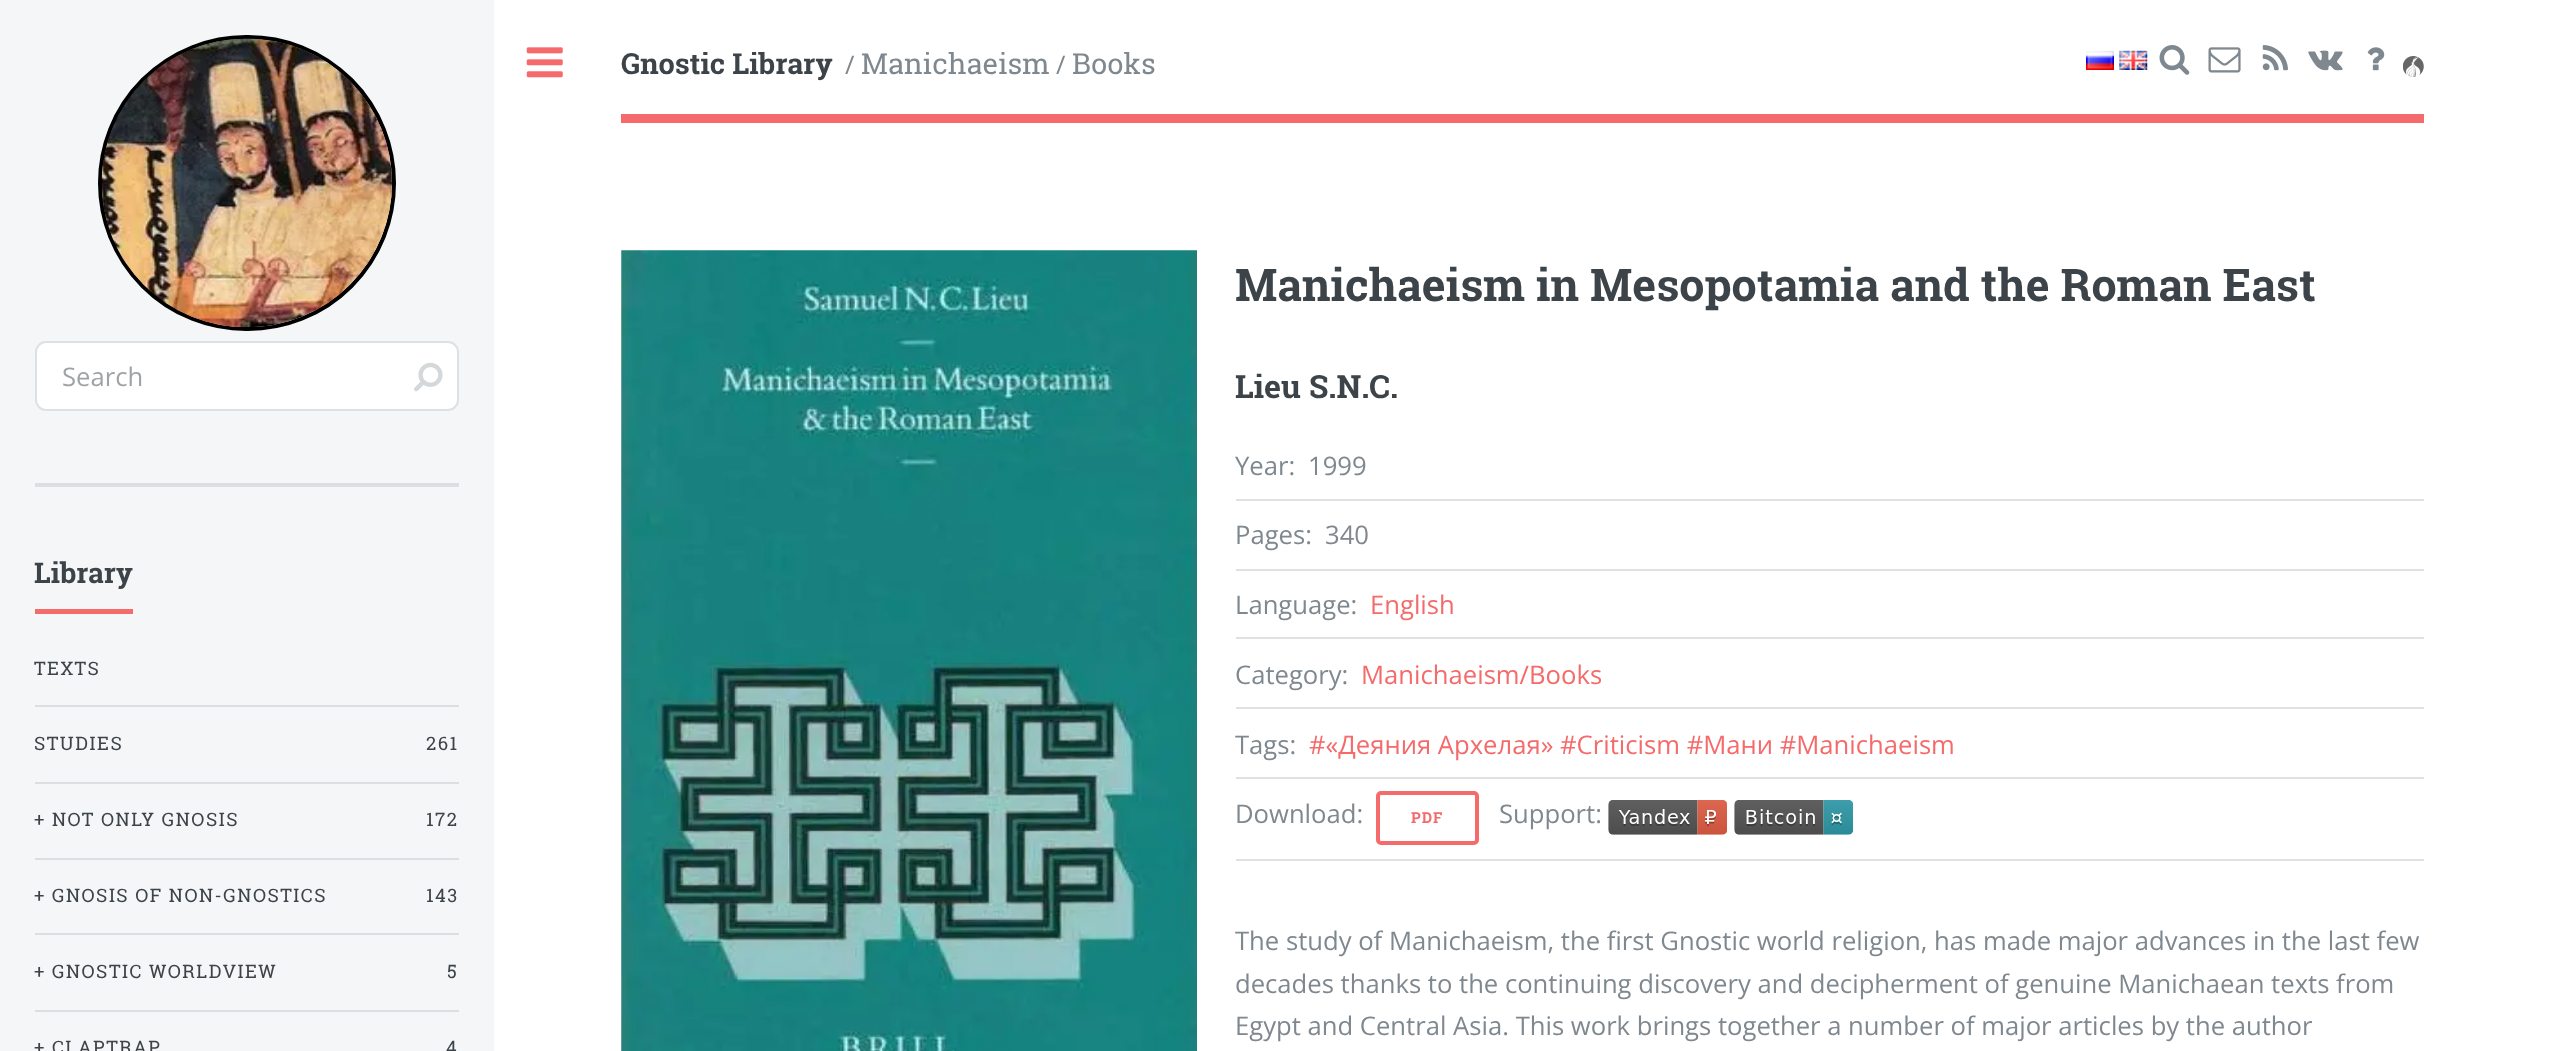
(async () => {
    const canvas = document.querySelector("canvas");
    canvas.width = 2551;
    canvas.height = 1051;
    const context = canvas.getContext("2d");
    context.miterLimit = 4;
    context.fontKerning = "normal";
    function write(s, x, y, font, color) {
        context.font = font;
        context.fillStyle = color;
        context.fillText(s, x, y);
    }
    function block(x, y, w, h, color) {
        context.fillStyle = color;
        context.fillRect(x, y, w, h);
    }
    function card(x, y, w, h, r, color) {
        context.fillStyle = color;
        context.beginPath();
        context.roundRect(x, y, w, h, r);
        context.fill();
    }
    async function photo(src, x, y, w, h) {
        const img = new Image();
        img.src = src;
        await img.decode();
        context.drawImage(img, x, y, w, h);
    }

    block(0, 0, 2551, 1051, "rgb(255, 255, 255)");
    block(0, 0, 494, 1051, "rgb(245, 246, 247)");
    await photo("media/1.png", 526, 47, 37, 31);
    block(35, 483, 424, 4, "rgb(219, 223, 225)");
    context.beginPath();
    context.roundRect(100, 37, 294, 292, 146);
    context.strokeStyle = "rgb(0, 0, 0)";
    context.lineWidth = 4;
    context.stroke();
    await photo("media/2.png", 101, 38, 291, 290);
    card(35, 341, 424, 70, 11, "rgb(255, 255, 255)");
    context.beginPath();
    context.roundRect(36, 342, 422, 68, 10);
    context.strokeStyle = "rgba(210, 215, 217, 0.75)";
    context.lineWidth = 2;
    context.stroke();
    write("Search", 62, 386, "25.65px Open Sans", "rgb(159, 163, 166)");
    await photo("media/3.png", 414, 362, 29, 30);
    block(35, 609, 98, 5, "rgb(245, 106, 106)");
    write("Library", 34, 583, "bold 28.5px Roboto Slab", "rgb(61, 68, 73)");
    context.letterSpacing = "1.5px";
    write("TEXTS", 34, 675, "18.5px Roboto Slab", "rgb(61, 68, 73)");
    block(35, 705, 424, 2, "rgb(219, 223, 225)");
    write("STUDIES", 34, 750, "18.5px Roboto Slab", "rgb(61, 68, 73)");
    write("261", 426, 750, "18.5px Roboto Slab", "rgb(61, 68, 73)");
    block(35, 782, 424, 2, "rgb(219, 223, 225)");
    write("+ NOT ONLY GNOSIS", 34, 826, "18.5px Roboto Slab", "rgb(61, 68, 73)");
    write("172", 426, 826, "18.5px Roboto Slab", "rgb(61, 68, 73)");
    block(35, 858, 424, 2, "rgb(219, 223, 225)");
    write("+ GNOSIS OF NON-GNOSTICS", 34, 902, "18.5px Roboto Slab", "rgb(61, 68, 73)");
    write("143", 426, 902, "18.5px Roboto Slab", "rgb(61, 68, 73)");
    block(35, 933, 424, 2, "rgb(219, 223, 225)");
    write("+ GNOSTIC WORLDVIEW", 34, 978, "18.5px Roboto Slab", "rgb(61, 68, 73)");
    write("5", 447, 978, "18.5px Roboto Slab", "rgb(61, 68, 73)");
    block(35, 1010, 424, 2, "rgb(219, 223, 225)");
    write("+ CLAPTRAP", 34, 1054, "18.5px Roboto Slab", "rgb(61, 68, 73)");
    write("4", 446, 1054, "18.5px Roboto Slab", "rgb(61, 68, 73)");
    block(621, 114, 1803, 9, "rgb(245, 106, 106)");
    context.letterSpacing = "0px";
    write("Gnostic Library", 621, 74, "bold 29px Roboto Slab", "rgb(61, 68, 73)");
    write("/", 845, 74, "25.65px Open Sans", "rgb(127, 136, 143)");
    write("Manichaeism", 861, 74, "29px Roboto Slab", "rgb(127, 136, 143)");
    write("/", 1056, 74, "25.65px Open Sans", "rgb(127, 136, 143)");
    write("Books", 1072, 74, "29px Roboto Slab", "rgb(127, 136, 143)");
    await photo("media/4.png", 2086, 50, 28, 20);
    await photo("media/5.png", 2119, 50, 29, 20);
    await photo("media/6.png", 2159, 45, 31, 30);
    await photo("media/7.png", 2208, 47, 33, 26);
    await photo("media/8.png", 2262, 45, 26, 26);
    await photo("media/9.png", 2308, 50, 35, 21);
    await photo("media/10.png", 2367, 47, 18, 24);
    await photo("media/11.png", 2403, 56, 21, 21);
    await photo("media/12.png", 621, 250, 576, 801);
    write("Manichaeism in Mesopotamia and the Roman East", 1235, 301, "bold 44.9px Roboto Slab", "rgb(61, 68, 73)");
    write("Lieu S.N.C.", 1235, 398, "bold 32px Roboto Slab", "rgb(61, 68, 73)");
    write("Year:", 1235, 475, "25.65px Open Sans", "rgb(127, 136, 143)");
    write("1999", 1308, 475, "25.65px Open Sans", "rgb(127, 136, 143)");
    block(1236, 499, 1188, 2, "rgb(221, 225, 227)");
    write("Pages:", 1235, 544, "25.65px Open Sans", "rgb(127, 136, 143)");
    write("340", 1325, 544, "25.65px Open Sans", "rgb(127, 136, 143)");
    block(1236, 569, 1188, 2, "rgb(221, 225, 227)");
    write("Language:", 1235, 614, "25.65px Open Sans", "rgb(127, 136, 143)");
    write("English", 1370, 614, "25.65px Open Sans", "rgb(245, 106, 106)");
    block(1236, 637, 1188, 2, "rgb(221, 225, 227)");
    write("Category:", 1235, 684, "25.65px Open Sans", "rgb(127, 136, 143)");
    write("Manichaeism/Books", 1361, 684, "25.65px Open Sans", "rgb(245, 106, 106)");
    block(1236, 707, 1188, 2, "rgb(221, 225, 227)");
    write("Tags:", 1235, 754, "25.65px Open Sans", "rgb(127, 136, 143)");
    write("#«Деяния Архелая» #Criticism #Мани #Manichaeism", 1309, 754, "25.65px Open Sans", "rgb(245, 106, 106)");
    block(1236, 777, 1188, 2, "rgb(221, 225, 227)");
    write("Download:", 1235, 823, "25.65px Open Sans", "rgb(127, 136, 143)");
    context.beginPath();
    context.roundRect(1378, 793, 99, 50, 3);
    context.strokeStyle = "rgb(245, 106, 106)";
    context.lineWidth = 4;
    context.stroke();
    context.letterSpacing = "1px";
    write("PDF", 1411, 823, "bold 15px Roboto Slab", "rgb(245, 106, 106)");
    context.letterSpacing = "0px";
    write("Support:", 1499, 823, "25.65px Open Sans", "rgb(127, 136, 143)");
    await photo("media/13.png", 1608, 800, 119, 35);
    await photo("media/14.png", 1734, 800, 119, 35);
    block(1236, 859, 1188, 2, "rgb(221, 225, 227)");
    write("The study of Manichaeism, the first Gnostic world religion, has made major advances in the last few", 1235, 950, "25.65px Open Sans", "rgb(127, 136, 143)");
    write("decades thanks to the continuing discovery and decipherment of genuine Manichaean texts from", 1235, 993, "25.65px Open Sans", "rgb(127, 136, 143)");
    write("Egypt and Central Asia. This work brings together a number of major articles by the author", 1235, 1035, "25.65px Open Sans", "rgb(127, 136, 143)");
})();
